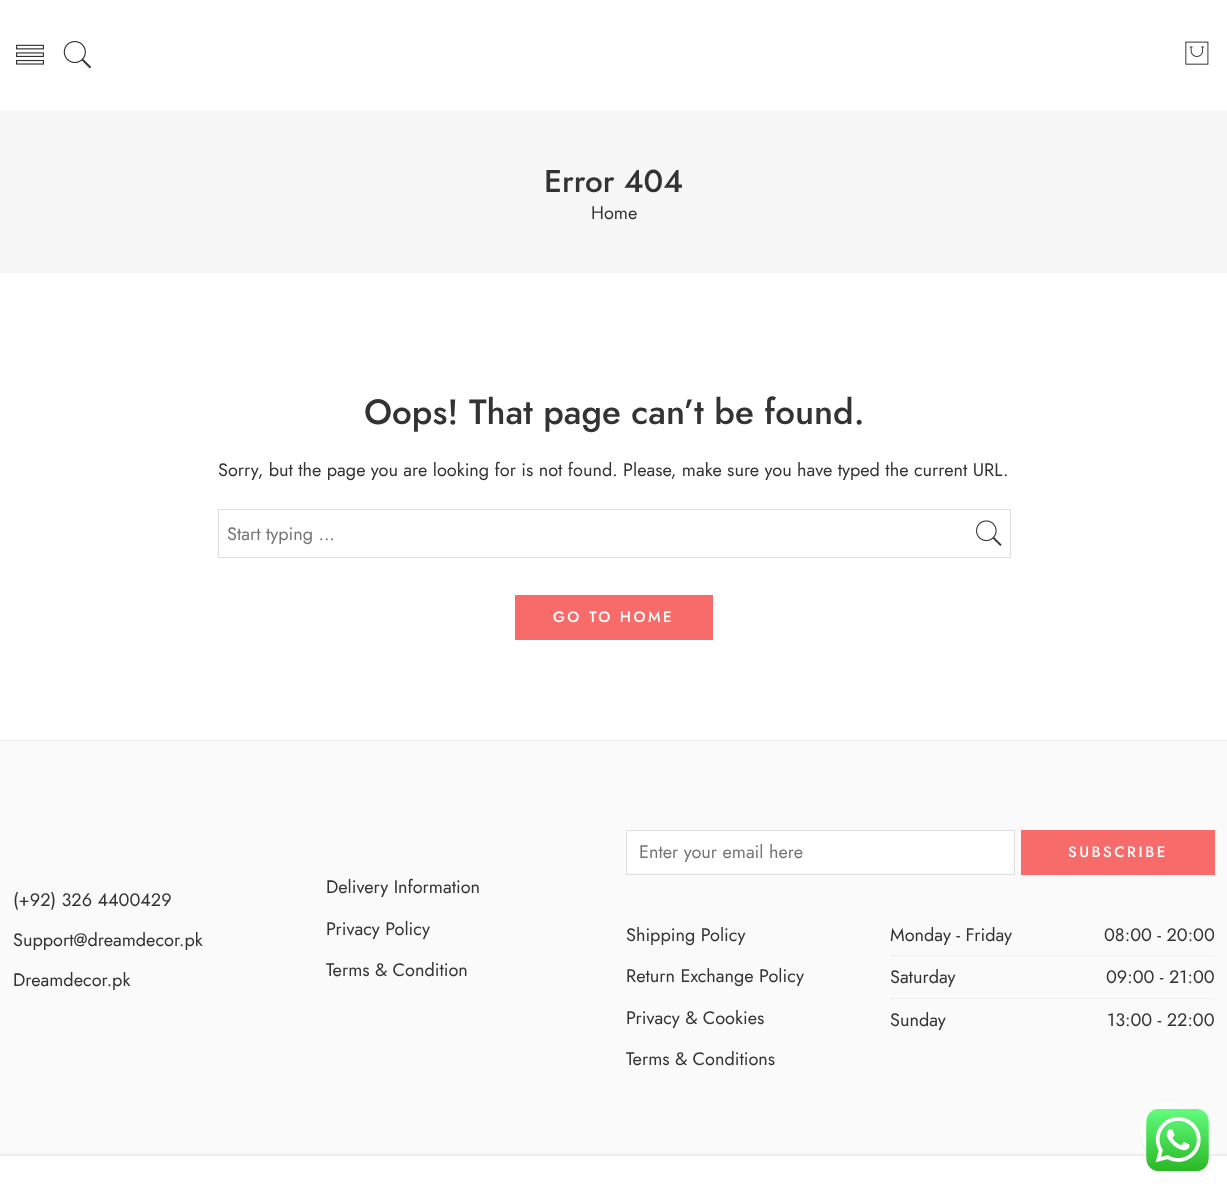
(async () => {
    const canvas = document.querySelector("canvas");
    canvas.width = 1227;
    canvas.height = 1190;
    const context = canvas.getContext("2d");
    context.miterLimit = 4;
    context.fontKerning = "normal";
    function write(s, x, y, font, color) {
        context.font = font;
        context.fillStyle = color;
        context.fillText(s, x, y);
    }
    function block(x, y, w, h, color) {
        context.fillStyle = color;
        context.fillRect(x, y, w, h);
    }
    async function photo(src, x, y, w, h) {
        const img = new Image();
        img.src = src;
        await img.decode();
        context.drawImage(img, x, y, w, h);
    }

    block(0, 0, 1227, 1190, "rgb(255, 255, 255)");
    await photo("media/1.png", 16, 44, 28, 21);
    await photo("media/2.png", 63, 40, 29, 29);
    await photo("media/3.png", 1185, 41, 24, 24);
    block(0, 110, 1227, 163, "rgb(247, 247, 247)");
    write("Error 404", 544, 192, "500 31.5px Jost", "rgb(51, 51, 51)");
    write("Home", 591, 219, "18.1px Jost", "rgb(51, 51, 51)");
    write("Oops! That page can’t be found.", 364, 424, "500 35px Jost", "rgb(51, 51, 51)");
    write("Sorry, but the page you are looking for is not found. Please, make sure you have typed the current URL.", 218, 476, "18.1px Jost", "rgb(51, 51, 51)");
    context.strokeStyle = "rgb(222, 222, 222)";
    context.strokeRect(218.5, 509.5, 792, 48);
    write("Start typing ...", 227, 540, "18.1px Jost", "rgb(117, 117, 117)");
    await photo("media/4.png", 976, 520, 26, 26);
    block(515, 595, 198, 45, "rgb(247, 107, 106)");
    context.letterSpacing = "2.5px";
    write("GO TO HOME", 553, 622, "500 15px Jost", "rgb(255, 255, 255)");
    block(0, 741, 1227, 413, "rgb(250, 250, 250)");
    block(0, 740, 1227, 1, "rgb(236, 236, 236)");
    block(0, 1154, 1227, 2, "rgb(236, 236, 236)");
    context.letterSpacing = "0px";
    write("(+92) 326 4400429", 13, 906, "18.1px Jost", "rgb(51, 51, 51)");
    write("Support@dreamdecor.pk", 13, 946, "18.1px Jost", "rgb(51, 51, 51)");
    write("Dreamdecor.pk", 13, 986, "18.1px Jost", "rgb(51, 51, 51)");
    write("Delivery Information", 326, 893, "18.1px Jost", "rgb(51, 51, 51)");
    write("Privacy Policy", 326, 935, "18.1px Jost", "rgb(51, 51, 51)");
    write("Terms & Condition", 326, 976, "18.1px Jost", "rgb(51, 51, 51)");
    context.fillStyle = "rgb(255, 255, 255)";
    context.beginPath();
    context.rect(626.5, 830.5, 388, 44);
    context.fill();
    context.stroke();
    write("Enter your email here", 639, 858, "18.1px Jost", "rgb(117, 117, 117)");
    block(1021, 830, 194, 45, "rgb(247, 107, 106)");
    context.letterSpacing = "2.5px";
    write("SUBSCRIBE", 1068, 857, "500 15px Jost", "rgb(255, 255, 255)");
    context.letterSpacing = "0px";
    write("Shipping Policy", 626, 941, "18.1px Jost", "rgb(51, 51, 51)");
    write("Return Exchange Policy", 626, 982, "18.1px Jost", "rgb(51, 51, 51)");
    write("Privacy & Cookies", 626, 1024, "18.1px Jost", "rgb(51, 51, 51)");
    write("Terms & Conditions", 626, 1065, "18.1px Jost", "rgb(51, 51, 51)");
    block(890, 955, 325, 1, "rgb(239, 239, 239)");
    write("Monday - Friday", 890, 941, "18.1px Jost", "rgb(51, 51, 51)");
    write("08:00 - 20:00", 1104, 941, "18.1px Jost", "rgb(51, 51, 51)");
    block(890, 998, 325, 1, "rgb(239, 239, 239)");
    write("Saturday", 890, 983, "18.1px Jost", "rgb(51, 51, 51)");
    write("09:00 - 21:00", 1106, 983, "18.1px Jost", "rgb(51, 51, 51)");
    write("Sunday", 890, 1026, "18.1px Jost", "rgb(51, 51, 51)");
    write("13:00 - 22:00", 1107, 1026, "18.1px Jost", "rgb(51, 51, 51)");
    context.fillStyle = "rgba(0, 0, 0, 0.08)";
    context.beginPath();
    context.moveTo(1140, 1132);
    context.bezierCurveTo(1140, 1138, 1141, 1144, 1145, 1149);
    context.bezierCurveTo(1160, 1171, 1194, 1161, 1196, 1135);
    context.bezierCurveTo(1191, 1168, 1141, 1165, 1140, 1132);
    context.closePath();
    context.fill();
    context.fillStyle = "rgba(255, 255, 255, 0.8)";
    context.beginPath();
    context.arc(1168, 1131, 28, 0, Math.PI * 2);
    context.fill();
    await photo("media/5.png", 1146, 1109, 63, 62);
})();
